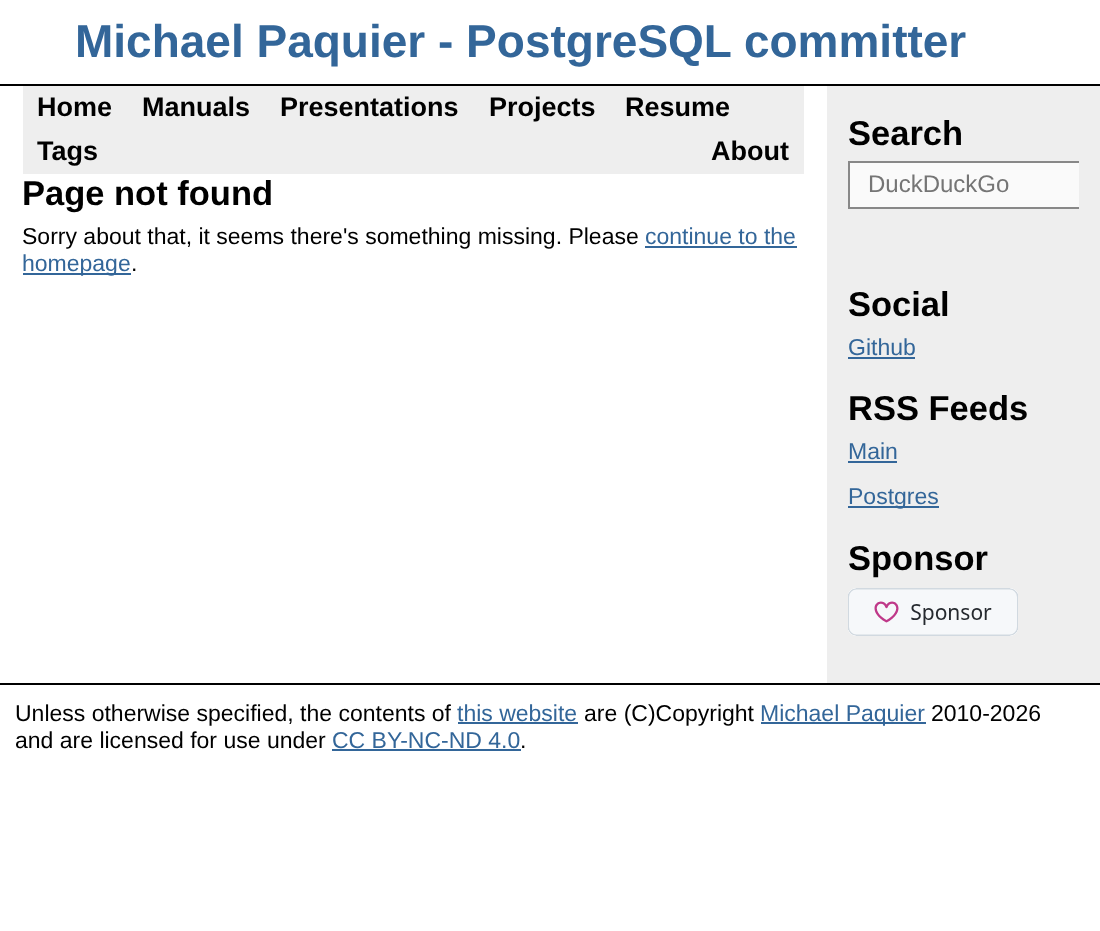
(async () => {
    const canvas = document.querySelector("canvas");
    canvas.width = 1100;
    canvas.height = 931;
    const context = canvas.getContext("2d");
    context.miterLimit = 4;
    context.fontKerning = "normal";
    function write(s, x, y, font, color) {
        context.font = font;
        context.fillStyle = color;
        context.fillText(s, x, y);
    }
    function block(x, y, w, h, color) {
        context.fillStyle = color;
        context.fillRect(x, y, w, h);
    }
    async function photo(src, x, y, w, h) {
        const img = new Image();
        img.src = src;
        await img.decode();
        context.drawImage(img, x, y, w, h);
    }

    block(0, 0, 1100, 931, "rgb(255, 255, 255)");
    block(0, 84, 1100, 2, "rgb(0, 0, 0)");
    write("Michael Paquier - PostgreSQL committer", 75, 57, "bold 46px Liberation Sans", "rgb(51, 102, 153)");
    block(827, 86, 273, 597, "rgb(238, 238, 238)");
    block(23, 86, 781, 88, "rgb(238, 238, 238)");
    write("Home", 37, 116, "bold 27px Liberation Sans", "rgb(0, 0, 0)");
    write("Manuals", 142, 116, "bold 27px Liberation Sans", "rgb(0, 0, 0)");
    write("Presentations", 280, 116, "bold 27px Liberation Sans", "rgb(0, 0, 0)");
    write("Projects", 489, 116, "bold 27px Liberation Sans", "rgb(0, 0, 0)");
    write("Resume", 625, 116, "bold 27px Liberation Sans", "rgb(0, 0, 0)");
    write("Tags", 37, 160, "bold 27px Liberation Sans", "rgb(0, 0, 0)");
    write("About", 711, 160, "bold 27px Liberation Sans", "rgb(0, 0, 0)");
    write("Page not found", 22, 205, "bold 34.5px Liberation Sans", "rgb(0, 0, 0)");
    write("Sorry about that, it seems there's something missing. Please", 22, 244, "23px Liberation Sans", "rgb(0, 0, 0)");
    write("continue to the", 645, 244, "23px Liberation Sans", "rgb(51, 102, 153)");
    block(645, 246, 152, 2, "rgb(51, 102, 153)");
    block(23, 273, 108, 2, "rgb(51, 102, 153)");
    write("homepage", 22, 271, "23px Liberation Sans", "rgb(51, 102, 153)");
    write(".", 131, 271, "23px Liberation Sans", "rgb(0, 0, 0)");
    write("Search", 848, 145, "bold 34.5px Liberation Sans", "rgb(0, 0, 0)");
    block(850, 163, 229, 44, "rgb(250, 250, 250)");
    context.save();
    context.beginPath();
    context.rect(848, 86, 231, 597);
    context.clip();
    context.strokeStyle = "rgb(136, 136, 136)";
    context.lineWidth = 2;
    context.strokeRect(849, 162, 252, 46);
    context.restore();
    write("DuckDuckGo", 868, 192, "24px Liberation Sans", "rgb(117, 117, 117)");
    write("Social", 848, 316, "bold 34.5px Liberation Sans", "rgb(0, 0, 0)");
    write("Github", 848, 355, "23px Liberation Sans", "rgb(51, 102, 153)");
    block(848, 357, 67, 2, "rgb(51, 102, 153)");
    write("RSS Feeds", 848, 420, "bold 34.5px Liberation Sans", "rgb(0, 0, 0)");
    write("Main", 848, 459, "23px Liberation Sans", "rgb(51, 102, 153)");
    block(848, 461, 49, 2, "rgb(51, 102, 153)");
    block(848, 506, 91, 2, "rgb(51, 102, 153)");
    write("Postgres", 848, 504, "23px Liberation Sans", "rgb(51, 102, 153)");
    write("Sponsor", 848, 570, "bold 34.5px Liberation Sans", "rgb(0, 0, 0)");
    await photo("media/1.png", 848, 588, 170, 48);
    block(0, 683, 1100, 2, "rgb(0, 0, 0)");
    write("Unless otherwise specified, the contents of", 15, 721, "23px Liberation Sans", "rgb(0, 0, 0)");
    write("this website", 457, 721, "23px Liberation Sans", "rgb(51, 102, 153)");
    block(458, 722, 120, 2, "rgb(51, 102, 153)");
    write("are (C)Copyright", 584, 721, "23px Liberation Sans", "rgb(0, 0, 0)");
    block(761, 722, 165, 2, "rgb(51, 102, 153)");
    write("Michael Paquier", 760, 721, "23px Liberation Sans", "rgb(51, 102, 153)");
    write("2010-2026", 931, 721, "23px Liberation Sans", "rgb(0, 0, 0)");
    write("and are licensed for use under", 15, 748, "23px Liberation Sans", "rgb(0, 0, 0)");
    write("CC BY-NC-ND 4.0", 332, 748, "23px Liberation Sans", "rgb(51, 102, 153)");
    block(332, 749, 189, 2, "rgb(51, 102, 153)");
    write(".", 520, 748, "23px Liberation Sans", "rgb(0, 0, 0)");
})();
